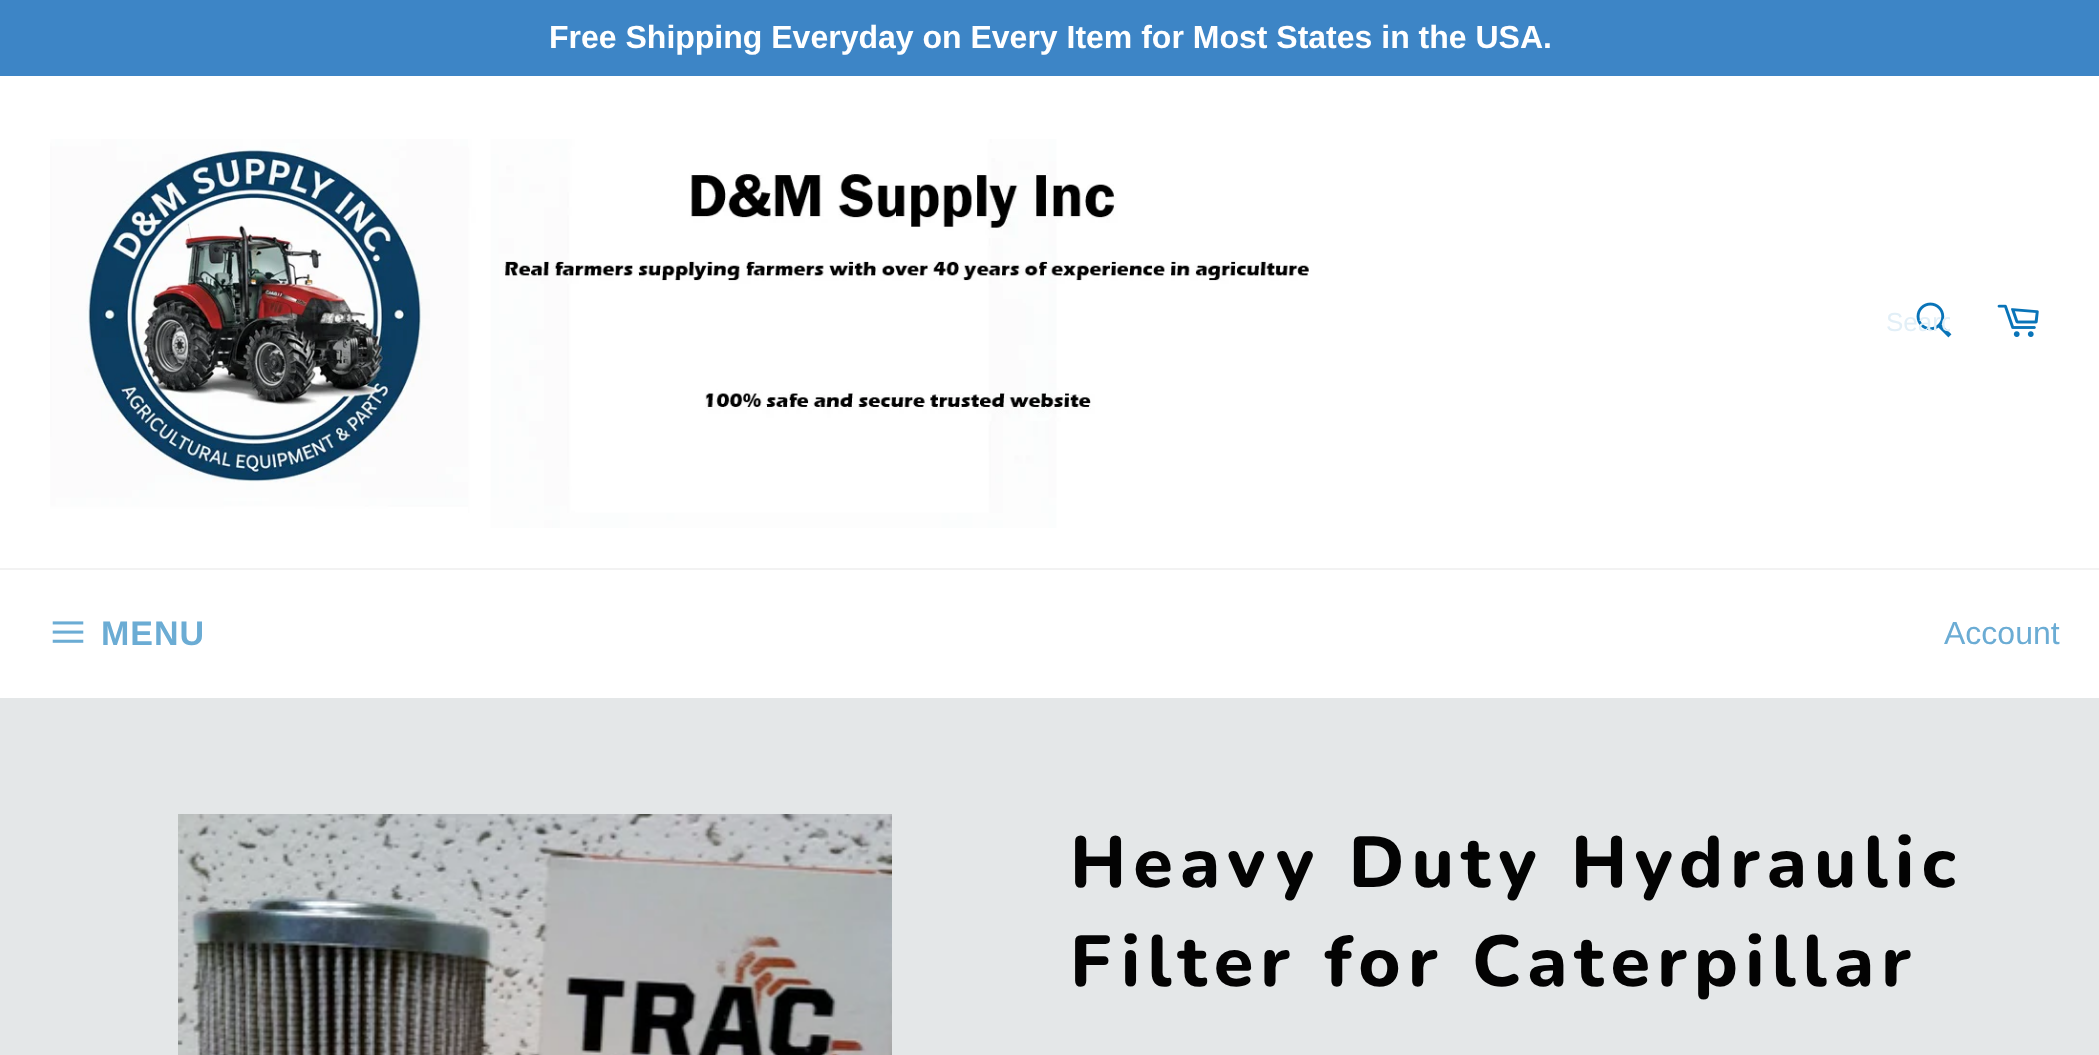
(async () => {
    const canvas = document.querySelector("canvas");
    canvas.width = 2099;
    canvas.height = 1055;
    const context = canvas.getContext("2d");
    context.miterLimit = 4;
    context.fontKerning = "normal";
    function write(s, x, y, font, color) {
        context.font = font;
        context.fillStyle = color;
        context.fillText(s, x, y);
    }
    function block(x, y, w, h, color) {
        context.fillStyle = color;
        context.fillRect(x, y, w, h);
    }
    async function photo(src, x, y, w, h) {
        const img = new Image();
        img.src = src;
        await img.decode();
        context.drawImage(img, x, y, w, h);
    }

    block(0, 0, 2099, 1055, "rgb(255, 255, 255)");
    block(0, 0, 2099, 76, "rgb(61, 133, 198)");
    write("Free Shipping Everyday on Every Item for Most States in the USA.", 549, 48, "bold 32px Liberation Sans", "rgb(255, 255, 255)");
    await photo("media/1.png", 50, 139, 1259, 389);
    await photo("media/2.png", 1916, 302, 36, 36);
    context.save();
    context.beginPath();
    context.rect(1886, 308, 64, 30);
    context.clip();
    write("Searc", 1886, 331, "26px Arimo", "rgb(226, 239, 247)");
    context.restore();
    await photo("media/3.png", 1997, 304, 42, 33);
    block(0, 568, 2099, 2, "rgb(242, 242, 242)");
    await photo("media/4.png", 52, 621, 32, 22);
    context.letterSpacing = "1px";
    write("MENU", 101, 645, "bold 34px Arimo", "rgb(107, 172, 212)");
    context.letterSpacing = "0px";
    write("Account", 1944, 644, "32px Arimo", "rgb(107, 172, 212)");
    block(0, 698, 2099, 357, "rgb(228, 231, 232)");
    await photo("media/5.png", 178, 814, 714, 241);
    context.letterSpacing = "7.2px";
    write("Heavy Duty Hydraulic", 1070, 887, "800 72px Nunito", "rgb(3, 3, 3)");
    write("Filter for Caterpillar", 1070, 986, "800 72px Nunito", "rgb(3, 3, 3)");
})();
